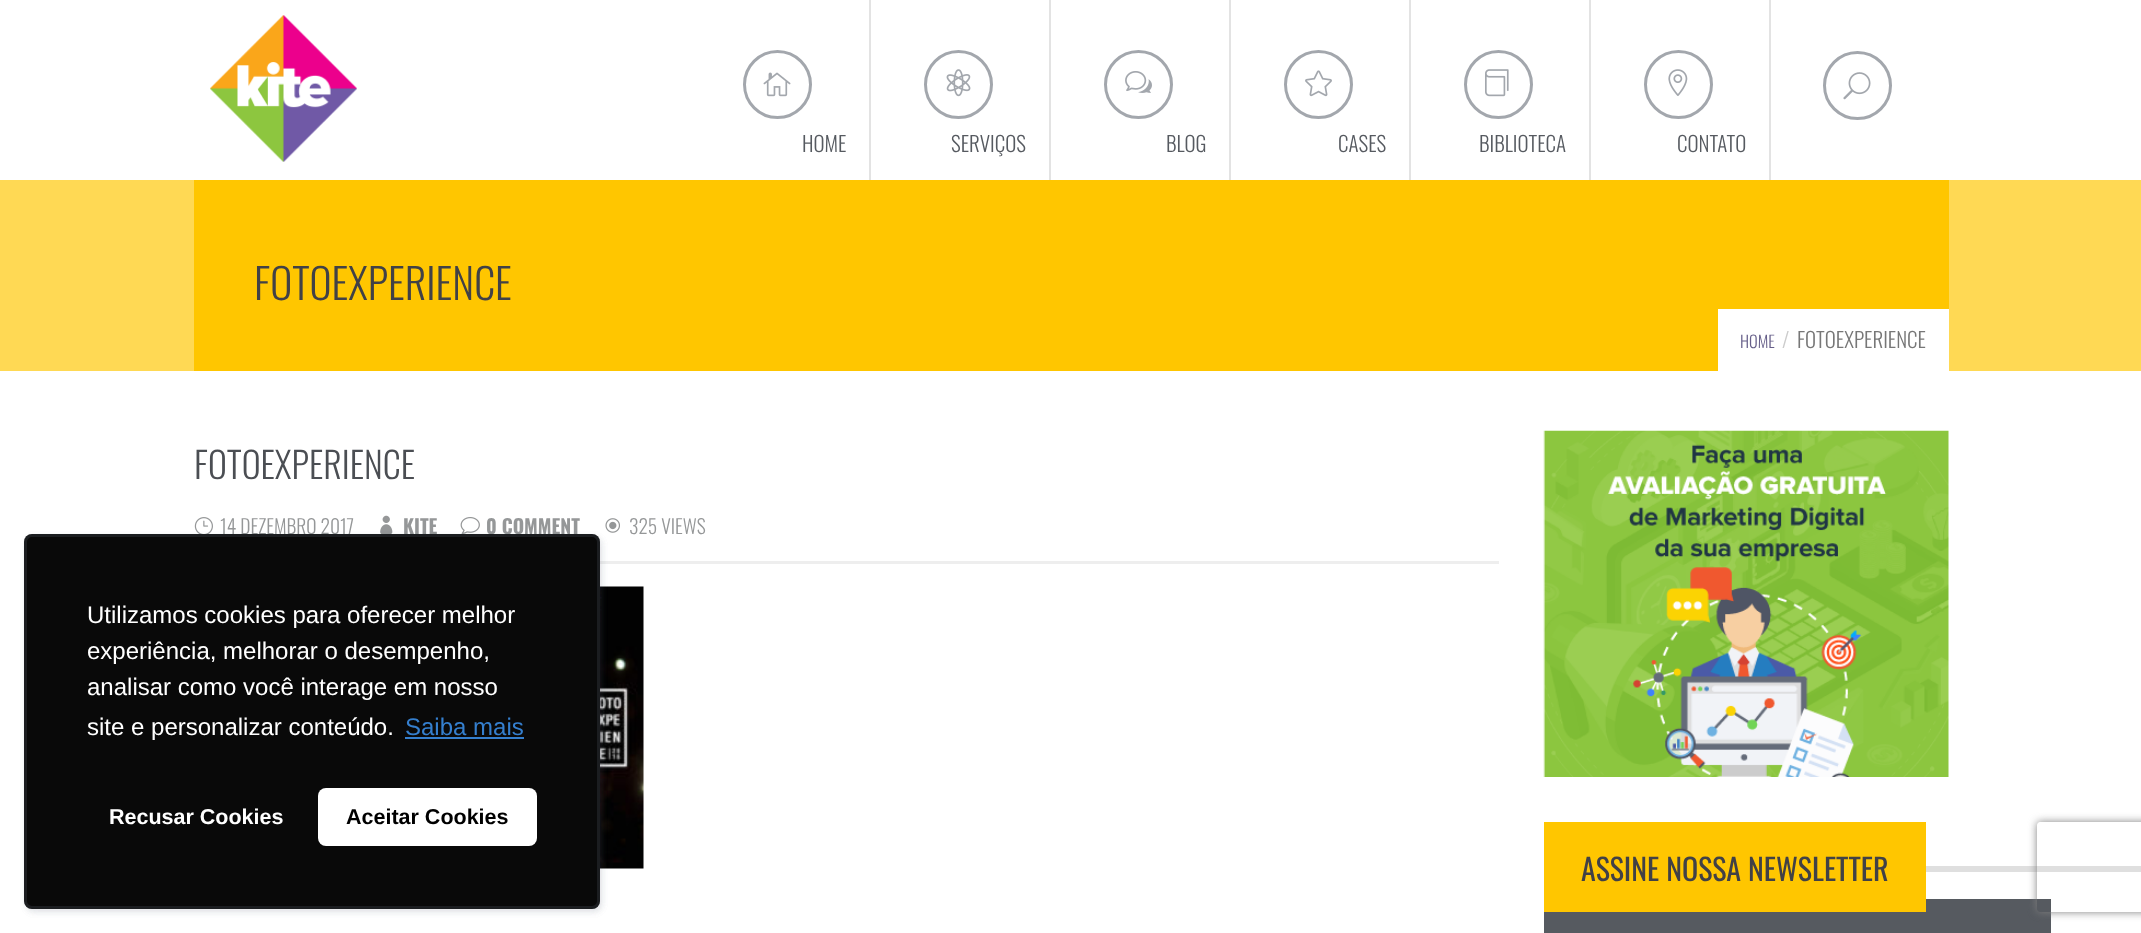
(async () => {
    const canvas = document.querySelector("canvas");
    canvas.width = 2141;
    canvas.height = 933;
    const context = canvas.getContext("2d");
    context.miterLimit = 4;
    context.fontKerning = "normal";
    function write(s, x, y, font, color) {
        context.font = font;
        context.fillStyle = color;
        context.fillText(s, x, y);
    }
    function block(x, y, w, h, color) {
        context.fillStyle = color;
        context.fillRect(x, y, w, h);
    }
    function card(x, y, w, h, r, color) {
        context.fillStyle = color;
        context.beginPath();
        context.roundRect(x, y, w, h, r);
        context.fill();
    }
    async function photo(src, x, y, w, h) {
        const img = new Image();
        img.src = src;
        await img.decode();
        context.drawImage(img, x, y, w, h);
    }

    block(0, 0, 2141, 933, "rgb(255, 255, 255)");
    await photo("media/1.png", 210, 15, 147, 147);
    context.beginPath();
    context.arc(777.5, 84.5, 33, 0, Math.PI * 2);
    context.strokeStyle = "rgb(163, 167, 173)";
    context.lineWidth = 3;
    context.stroke();
    await photo("media/2.png", 763, 72, 28, 25);
    write("HOME", 802, 152, "300 21px Oswald", "rgb(86, 90, 96)");
    block(869, 0, 2, 180, "rgb(227, 227, 227)");
    context.beginPath();
    context.arc(958.5, 84.5, 33, 0, Math.PI * 2);
    context.stroke();
    await photo("media/3.png", 946, 69, 25, 28);
    write("SERVIÇOS", 951, 152, "300 21px Oswald", "rgb(86, 90, 96)");
    block(1049, 0, 2, 180, "rgb(227, 227, 227)");
    context.beginPath();
    context.arc(1138.5, 84.5, 33, 0, Math.PI * 2);
    context.stroke();
    await photo("media/4.png", 1125, 71, 27, 22);
    write("BLOG", 1166, 152, "300 21px Oswald", "rgb(86, 90, 96)");
    block(1229, 0, 2, 180, "rgb(227, 227, 227)");
    context.beginPath();
    context.arc(1318.5, 84.5, 33, 0, Math.PI * 2);
    context.stroke();
    await photo("media/5.png", 1305, 70, 27, 27);
    write("CASES", 1338, 152, "300 21px Oswald", "rgb(86, 90, 96)");
    block(1409, 0, 2, 180, "rgb(227, 227, 227)");
    context.beginPath();
    context.arc(1498.5, 84.5, 33, 0, Math.PI * 2);
    context.stroke();
    await photo("media/6.png", 1485, 69, 24, 28);
    write("BIBLIOTECA", 1479, 152, "300 21px Oswald", "rgb(86, 90, 96)");
    block(1589, 0, 2, 180, "rgb(227, 227, 227)");
    context.beginPath();
    context.arc(1678.5, 84.5, 33, 0, Math.PI * 2);
    context.stroke();
    await photo("media/7.png", 1668, 69, 20, 27);
    write("CONTATO", 1677, 152, "300 21px Oswald", "rgb(86, 90, 96)");
    block(1769, 0, 2, 180, "rgb(227, 227, 227)");
    context.beginPath();
    context.arc(1857.5, 85.5, 33, 0, Math.PI * 2);
    context.stroke();
    await photo("media/8.png", 1843, 72, 28, 28);
    block(0, 180, 2141, 191, "rgb(255, 217, 84)");
    block(194, 180, 1755, 191, "rgb(255, 198, 0)");
    write("FOTOEXPERIENCE", 254, 300, "300 42px Oswald", "rgb(65, 65, 70)");
    block(1718, 309, 231, 62, "rgb(255, 255, 255)");
    write("HOME", 1740, 348, "300 16.5px Oswald", "rgb(102, 95, 137)");
    write("/", 1782, 348, "300 21px Oswald", "rgb(204, 204, 204)");
    write("FOTOEXPERIENCE", 1797, 348, "300 21px Oswald", "rgb(119, 119, 119)");
    write("FOTOEXPERIENCE", 194, 479, "300 36px Oswald", "rgb(75, 78, 83)");
    block(600, 561, 899, 3, "rgb(238, 238, 238)");
    await photo("media/9.png", 194, 517, 19, 17);
    write("14 DEZEMBRO 2017", 220, 534, "300 19.5px Oswald", "rgb(149, 151, 152)");
    await photo("media/10.png", 380, 515, 13, 19);
    write("KITE", 403, 534, "bold 19.5px Oswald", "rgb(149, 151, 152)");
    await photo("media/11.png", 460, 517, 20, 17);
    write("0 COMMENT", 486, 534, "bold 19.5px Oswald", "rgb(149, 151, 152)");
    await photo("media/12.png", 605, 518, 15, 15);
    write("325 VIEWS", 629, 534, "300 19.5px Oswald", "rgb(149, 151, 152)");
    await photo("media/13.png", 600, 586, 44, 283);
    await photo("media/14.png", 1543, 430, 406, 347);
    block(1544, 899, 507, 34, "rgb(86, 90, 96)");
    block(1544, 822, 382, 90, "rgb(255, 198, 0)");
    write("ASSINE NOSSA NEWSLETTER", 1581, 881, "30px Oswald", "rgb(65, 65, 70)");
    block(1926, 866, 215, 6, "rgb(223, 223, 223)");
    context.fillStyle = "rgba(99, 110, 124, 0.1)";
    context.filter = "blur(3px)";
    context.beginPath();
    context.roundRect(26, 537, 576, 375, 8);
    context.fill();
    context.filter = "none";
    context.beginPath();
    context.roundRect(25.5, 535.5, 573, 372, 6.5);
    context.strokeStyle = "rgba(99, 110, 124, 0.2)";
    context.stroke();
    context.filter = "blur(3px)";
    context.beginPath();
    context.roundRect(26, 537, 576, 375, 8);
    context.fill();
    context.filter = "none";
    card(24, 534, 576, 375, 8, "rgb(9, 9, 9)");
    context.beginPath();
    context.roundRect(25.5, 535.5, 573, 372, 6.5);
    context.stroke();
    write("Utilizamos cookies para oferecer melhor", 87, 623, "24px Liberation Sans", "rgb(255, 255, 255)");
    write("experiência, melhorar o desempenho,", 87, 659, "24px Liberation Sans", "rgb(255, 255, 255)");
    write("analisar como você interage em nosso", 87, 695, "24px Liberation Sans", "rgb(255, 255, 255)");
    write("site e personalizar conteúdo.", 87, 735, "24px Liberation Sans", "rgb(255, 255, 255)");
    write("Saiba mais", 405, 735, "24px Liberation Sans", "rgb(53, 127, 206)");
    block(405, 737, 119, 2, "rgb(53, 127, 206)");
    write("Recusar Cookies", 109, 824, "bold 21.5px Liberation Sans", "rgb(255, 255, 255)");
    card(318, 788, 219, 58, 8, "rgb(255, 255, 255)");
    write("Aceitar Cookies", 346, 824, "bold 21.5px Liberation Sans", "rgb(0, 0, 0)");
    context.save();
    context.beginPath();
    context.moveTo(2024, 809);
    context.lineTo(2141, 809);
    context.lineTo(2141, 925);
    context.lineTo(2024, 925);
    context.closePath();
    context.moveTo(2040, 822);
    context.lineTo(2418, 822);
    context.bezierCurveTo(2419.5, 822, 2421, 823.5, 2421, 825);
    context.lineTo(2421, 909);
    context.bezierCurveTo(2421, 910.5, 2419.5, 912, 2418, 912);
    context.lineTo(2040, 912);
    context.bezierCurveTo(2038.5, 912, 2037, 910.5, 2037, 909);
    context.lineTo(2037, 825);
    context.bezierCurveTo(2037, 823.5, 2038.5, 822, 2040, 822);
    context.closePath();
    context.clip("evenodd");
    context.fillStyle = "rgb(128, 128, 128)";
    context.filter = "blur(4px)";
    context.beginPath();
    context.roundRect(2037, 822, 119, 90, 3);
    context.fill();
    context.filter = "none";
    context.restore();
})();
